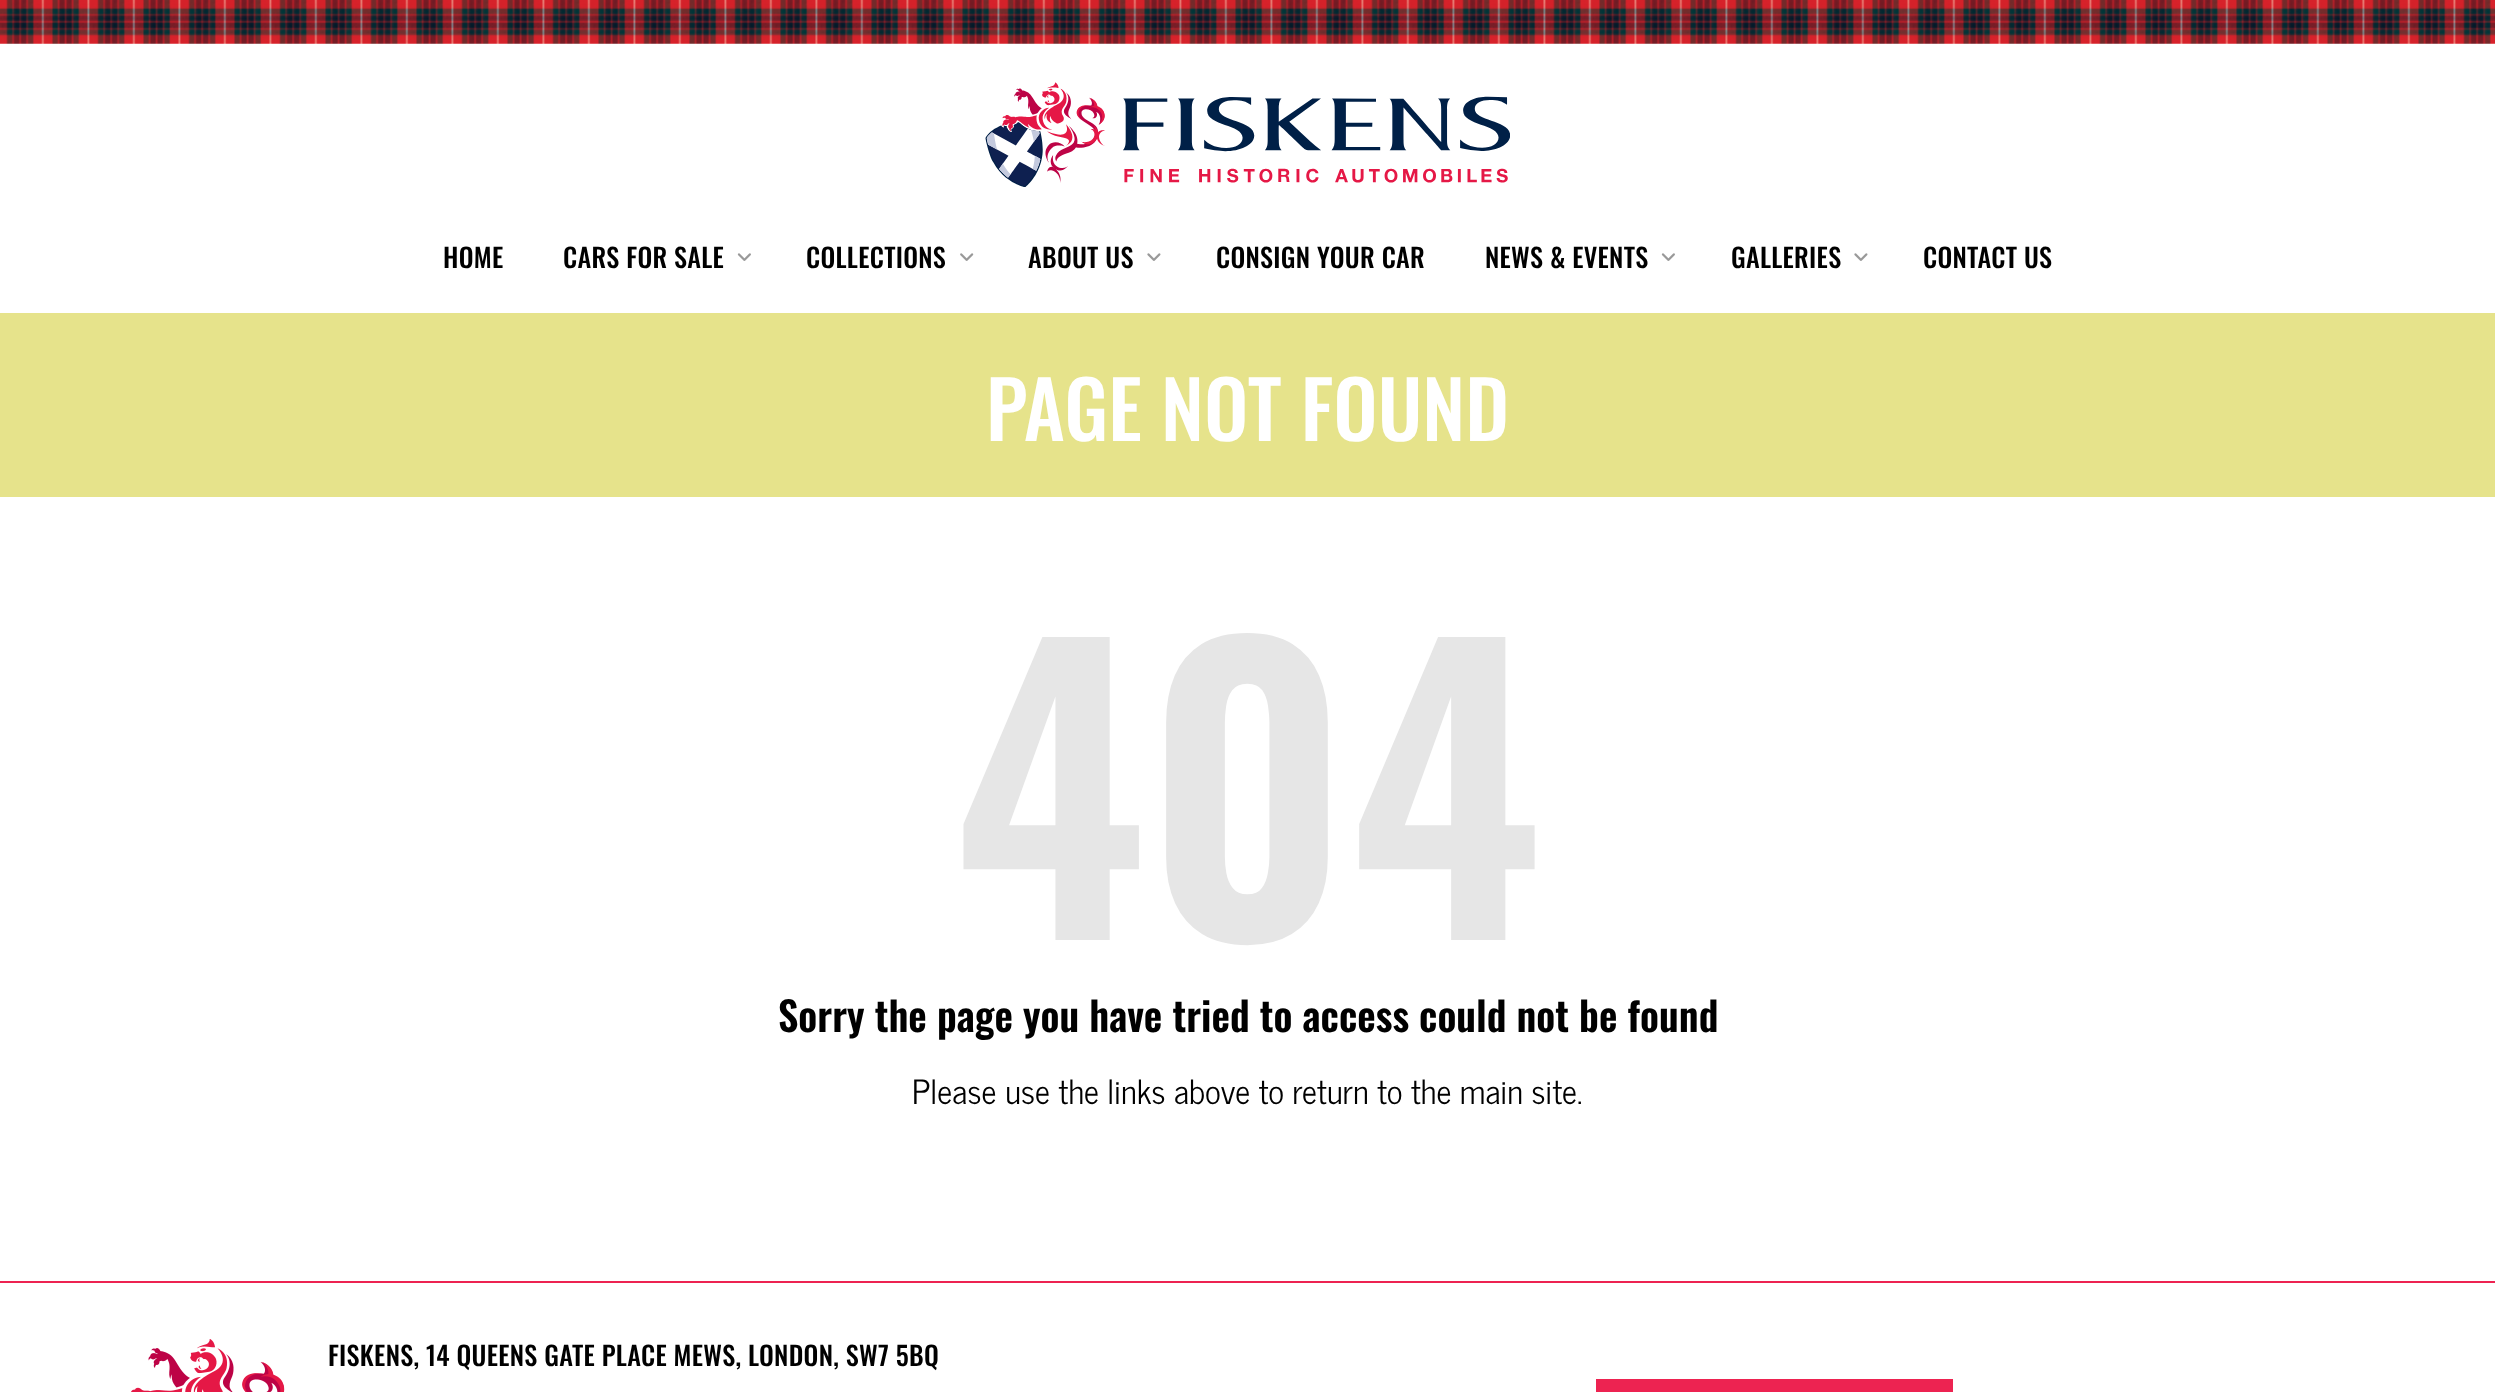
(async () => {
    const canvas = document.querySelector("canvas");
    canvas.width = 2495;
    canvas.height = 1392;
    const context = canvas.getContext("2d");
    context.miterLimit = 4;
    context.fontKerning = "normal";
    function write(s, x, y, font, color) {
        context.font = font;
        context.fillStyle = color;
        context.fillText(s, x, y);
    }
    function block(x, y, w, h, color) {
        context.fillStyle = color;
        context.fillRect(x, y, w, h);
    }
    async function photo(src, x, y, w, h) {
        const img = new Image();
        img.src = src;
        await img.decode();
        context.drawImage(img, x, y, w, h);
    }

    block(0, 0, 2495, 1392, "rgb(255, 255, 255)");
    await photo("media/1.png", 0, 0, 2495, 44);
    await photo("media/2.png", 985, 82, 525, 105);
    context.letterSpacing = "0.28px";
    write("HOME", 443, 268, "500 26.25px Oswald", "rgb(0, 0, 0)");
    write("CARS FOR SALE", 563, 268, "500 26.25px Oswald", "rgb(0, 0, 0)");
    await photo("media/3.png", 737, 253, 14, 8);
    write("COLLECTIONS", 806, 268, "500 26.25px Oswald", "rgb(0, 0, 0)");
    await photo("media/4.png", 960, 253, 14, 8);
    write("ABOUT US", 1028, 268, "500 26.25px Oswald", "rgb(0, 0, 0)");
    await photo("media/5.png", 1147, 253, 14, 8);
    write("CONSIGN YOUR CAR", 1216, 268, "500 26.25px Oswald", "rgb(0, 0, 0)");
    write("NEWS & EVENTS", 1485, 268, "500 26.25px Oswald", "rgb(0, 0, 0)");
    await photo("media/3.png", 1661, 253, 14, 8);
    write("GALLERIES", 1731, 268, "500 26.25px Oswald", "rgb(0, 0, 0)");
    await photo("media/5.png", 1854, 253, 14, 8);
    write("CONTACT US", 1923, 268, "500 26.25px Oswald", "rgb(0, 0, 0)");
    block(0, 313, 2495, 184, "rgb(230, 227, 139)");
    context.letterSpacing = "0px";
    write("PAGE NOT FOUND", 986, 441, "500 78.75px Oswald", "rgb(255, 255, 255)");
    write("404", 953, 940, "600 374px Oswald", "rgb(230, 230, 230)");
    write("Sorry the page you have tried to access could not be found", 778, 1032, "600 40.25px Oswald", "rgb(0, 0, 0)");
    write("Please use the links above to return to the main site.", 912, 1104, "33.25px News Cycle", "rgb(0, 0, 0)");
    block(0, 1281, 2495, 2, "rgb(237, 35, 81)");
    await photo("media/6.png", 131, 1339, 154, 53);
    context.letterSpacing = "0.28px";
    write("FISKENS, 14 QUEENS GATE PLACE MEWS, LONDON, SW7 5BQ", 328, 1366, "500 26.25px Oswald", "rgb(0, 0, 0)");
    block(1596, 1379, 357, 13, "rgb(237, 35, 81)");
})();
